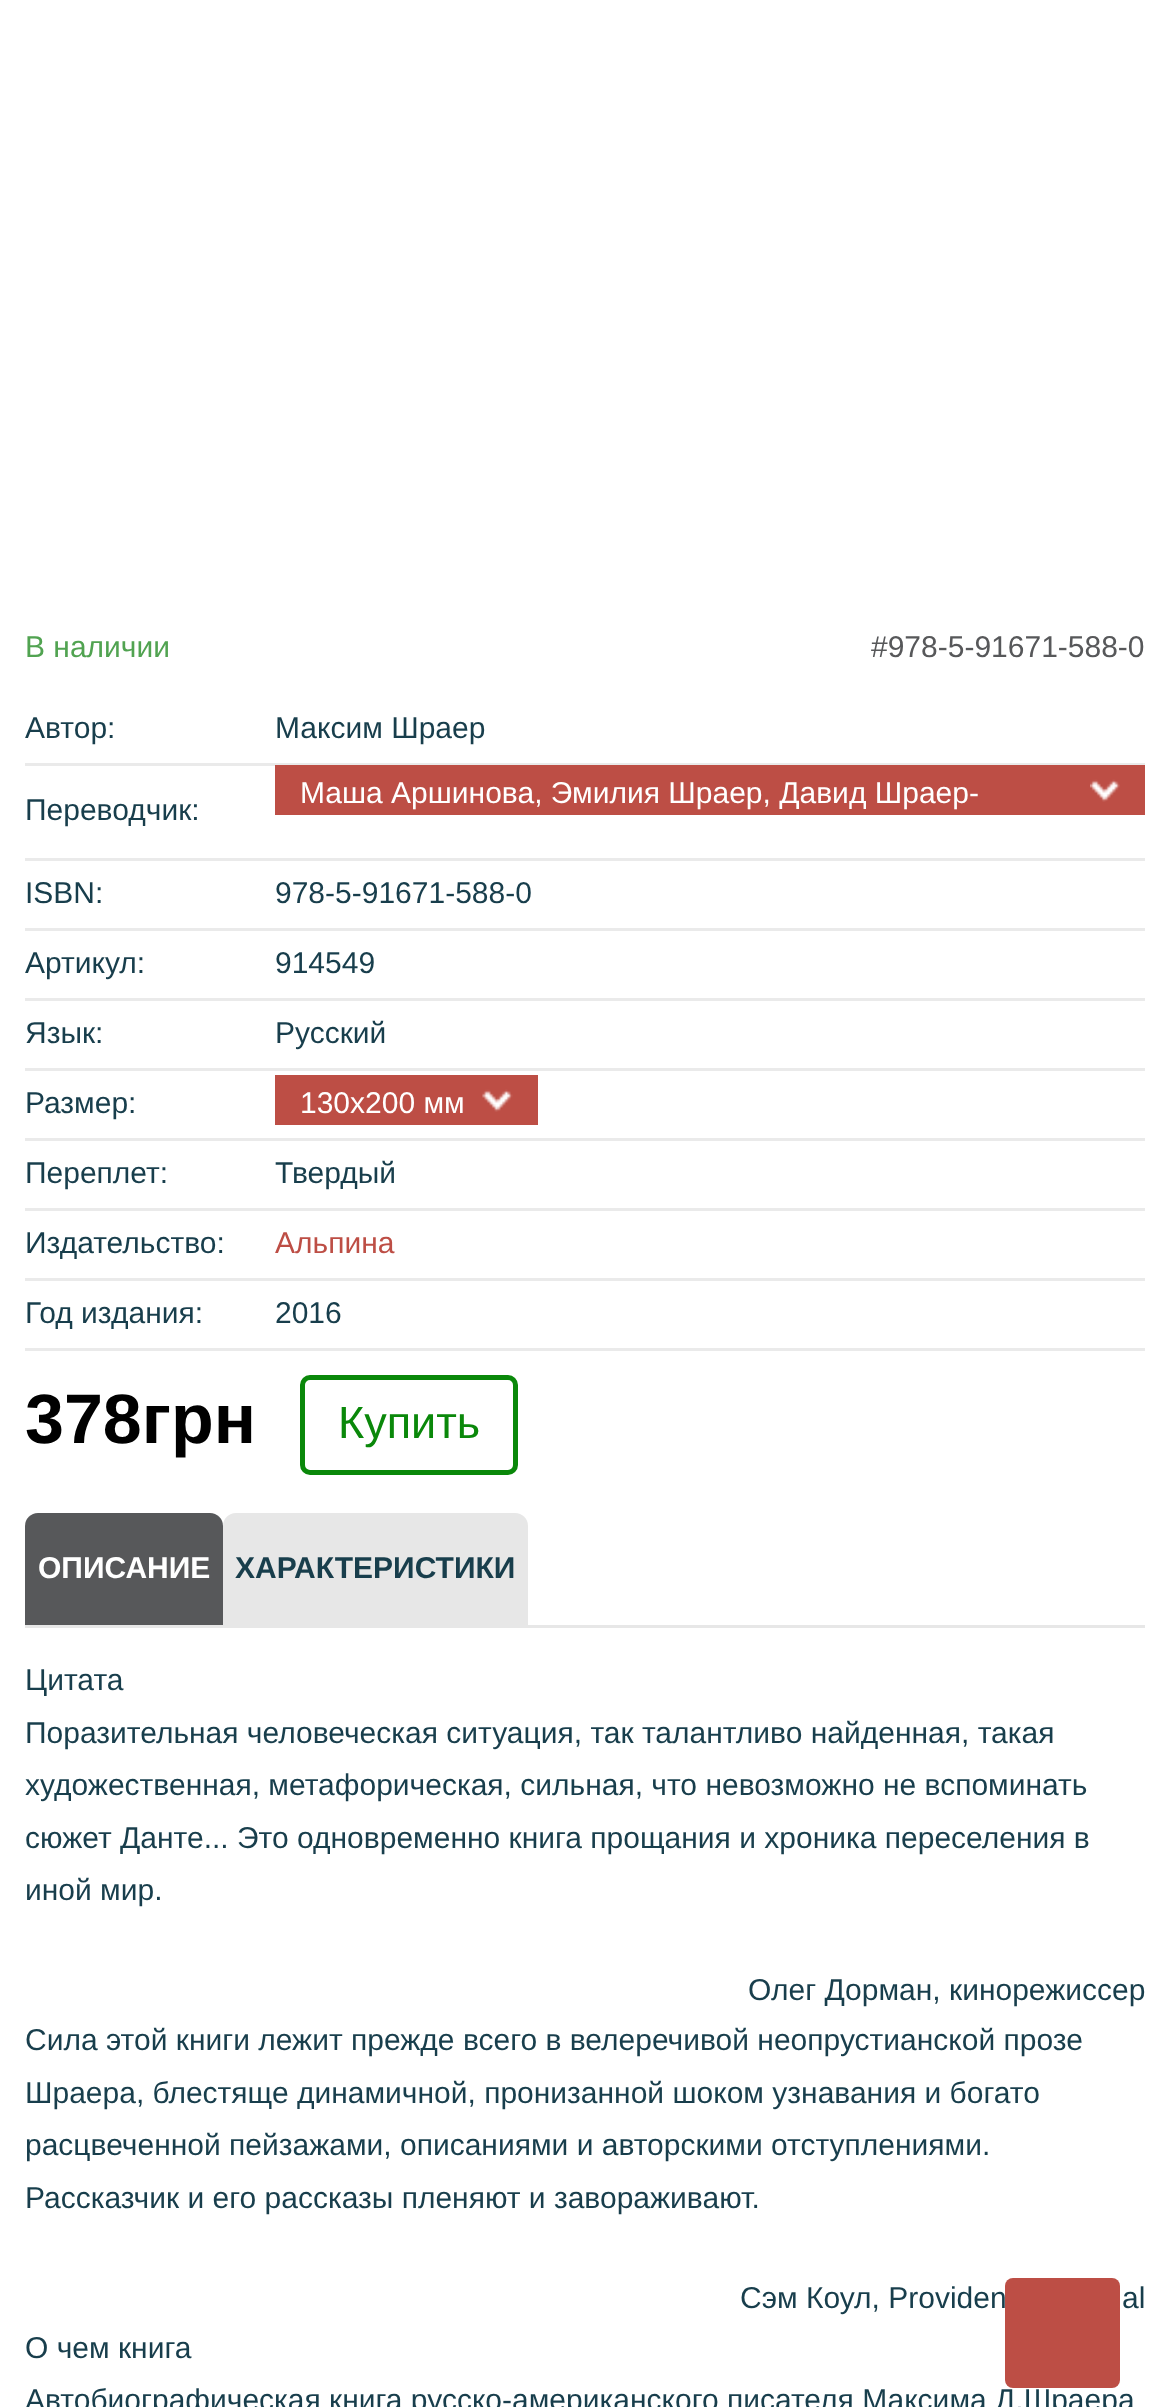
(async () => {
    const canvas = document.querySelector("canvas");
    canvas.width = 1169;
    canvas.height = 2407;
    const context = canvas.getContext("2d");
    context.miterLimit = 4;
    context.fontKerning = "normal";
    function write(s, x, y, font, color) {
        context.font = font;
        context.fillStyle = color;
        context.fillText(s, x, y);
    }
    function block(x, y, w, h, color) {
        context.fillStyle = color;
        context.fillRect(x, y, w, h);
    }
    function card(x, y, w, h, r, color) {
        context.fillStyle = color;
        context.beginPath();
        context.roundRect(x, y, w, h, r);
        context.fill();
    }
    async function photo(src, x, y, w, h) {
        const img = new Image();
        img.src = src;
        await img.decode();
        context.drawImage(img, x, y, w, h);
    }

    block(0, 0, 1169, 2407, "rgb(255, 255, 255)");
    write("В наличии", 25, 657, "30px Liberation Sans", "rgb(81, 163, 81)");
    write("#978-5-91671-588-0", 871, 657, "30px Liberation Sans", "rgb(87, 88, 90)");
    block(25, 763, 1120, 3, "rgb(234, 234, 234)");
    write("Автор:", 25, 738, "30px Liberation Sans", "rgb(24, 62, 76)");
    write("Максим Шраер", 275, 738, "30px Liberation Sans", "rgb(24, 62, 76)");
    block(25, 858, 1120, 3, "rgb(234, 234, 234)");
    block(275, 765, 870, 50, "rgb(189, 78, 69)");
    write("Маша Аршинова, Эмилия Шраер, Давид Шраер-", 300, 803, "30px Liberation Sans", "rgb(255, 255, 255)");
    await photo("media/1.png", 1090, 779, 30, 23);
    write("Переводчик:", 25, 820, "30px Liberation Sans", "rgb(24, 62, 76)");
    block(25, 928, 1120, 3, "rgb(234, 234, 234)");
    write("ISBN:", 25, 903, "30px Liberation Sans", "rgb(24, 62, 76)");
    write("978-5-91671-588-0", 275, 903, "30px Liberation Sans", "rgb(24, 62, 76)");
    block(25, 998, 1120, 3, "rgb(234, 234, 234)");
    write("Артикул:", 25, 973, "30px Liberation Sans", "rgb(24, 62, 76)");
    write("914549", 275, 973, "30px Liberation Sans", "rgb(24, 62, 76)");
    block(25, 1068, 1120, 3, "rgb(234, 234, 234)");
    write("Язык:", 25, 1043, "30px Liberation Sans", "rgb(24, 62, 76)");
    write("Русский", 275, 1043, "30px Liberation Sans", "rgb(24, 62, 76)");
    block(25, 1138, 1120, 3, "rgb(234, 234, 234)");
    write("Размер:", 25, 1113, "30px Liberation Sans", "rgb(24, 62, 76)");
    block(275, 1075, 263, 50, "rgb(189, 78, 69)");
    write("130х200 мм", 300, 1113, "30px Liberation Sans", "rgb(255, 255, 255)");
    await photo("media/2.png", 482, 1089, 31, 23);
    block(25, 1208, 1120, 3, "rgb(234, 234, 234)");
    write("Переплет:", 25, 1183, "30px Liberation Sans", "rgb(24, 62, 76)");
    write("Твердый", 275, 1183, "30px Liberation Sans", "rgb(24, 62, 76)");
    block(25, 1278, 1120, 3, "rgb(234, 234, 234)");
    write("Издательство:", 25, 1253, "30px Liberation Sans", "rgb(24, 62, 76)");
    write("Альпина", 275, 1253, "30px Liberation Sans", "rgb(189, 78, 69)");
    block(25, 1348, 1120, 3, "rgb(234, 234, 234)");
    write("Год издания:", 25, 1323, "30px Liberation Sans", "rgb(24, 62, 76)");
    write("2016", 275, 1323, "30px Liberation Sans", "rgb(24, 62, 76)");
    write("378грн", 25, 1443, "bold 70px Liberation Sans", "rgb(0, 0, 0)");
    context.beginPath();
    context.roundRect(302.5, 1377.5, 213, 95, 7.5);
    context.strokeStyle = "rgb(10, 136, 10)";
    context.lineWidth = 5;
    context.stroke();
    write("Купить", 338, 1438, "45px Liberation Sans", "rgb(10, 136, 10)");
    block(25, 1625, 1120, 3, "rgb(231, 231, 231)");
    context.fillStyle = "rgb(87, 88, 90)";
    context.beginPath();
    context.roundRect(25, 1513, 198, 112, [13, 13, 0, 0]);
    context.fill();
    write("ОПИСАНИЕ", 38, 1578, "bold 30px Liberation Sans", "rgb(255, 255, 255)");
    context.fillStyle = "rgb(231, 231, 231)";
    context.beginPath();
    context.roundRect(223, 1513, 305, 112, [13, 13, 0, 0]);
    context.fill();
    write("ХАРАКТЕРИСТИКИ", 235, 1578, "bold 30px Liberation Sans", "rgb(24, 62, 76)");
    write("Цитата", 25, 1690, "30px Liberation Sans", "rgb(24, 62, 76)");
    write("Поразительная человеческая ситуация, так талантливо найденная, такая", 25, 1743, "30px Liberation Sans", "rgb(24, 62, 76)");
    write("художественная, метафорическая, сильная, что невозможно не вспоминать", 25, 1795, "30px Liberation Sans", "rgb(24, 62, 76)");
    write("сюжет Данте... Это одновременно книга прощания и хроника переселения в", 25, 1848, "30px Liberation Sans", "rgb(24, 62, 76)");
    write("иной мир.", 25, 1900, "30px Liberation Sans", "rgb(24, 62, 76)");
    write("Олег Дорман, кинорежиссер", 748, 2000, "30px Liberation Sans", "rgb(24, 62, 76)");
    write("Сила этой книги лежит прежде всего в велеречивой неопрустианской прозе", 25, 2050, "30px Liberation Sans", "rgb(24, 62, 76)");
    write("Шраера, блестяще динамичной, пронизанной шоком узнавания и богато", 25, 2103, "30px Liberation Sans", "rgb(24, 62, 76)");
    write("расцвеченной пейзажами, описаниями и авторскими отступлениями.", 25, 2155, "30px Liberation Sans", "rgb(24, 62, 76)");
    write("Рассказчик и его рассказы пленяют и завораживают.", 25, 2208, "30px Liberation Sans", "rgb(24, 62, 76)");
    write("Сэм Коул, Providen", 740, 2308, "30px Liberation Sans", "rgb(24, 62, 76)");
    write("al", 1122, 2308, "30px Liberation Sans", "rgb(24, 62, 76)");
    write("О чем книга", 25, 2358, "30px Liberation Sans", "rgb(24, 62, 76)");
    write("Автобиографическая книга русско-американского писателя Максима Д.Шраера", 25, 2410, "30px Liberation Sans", "rgb(24, 62, 76)");
    card(1005, 2278, 115, 110, 8, "rgb(189, 78, 69)");
})();
